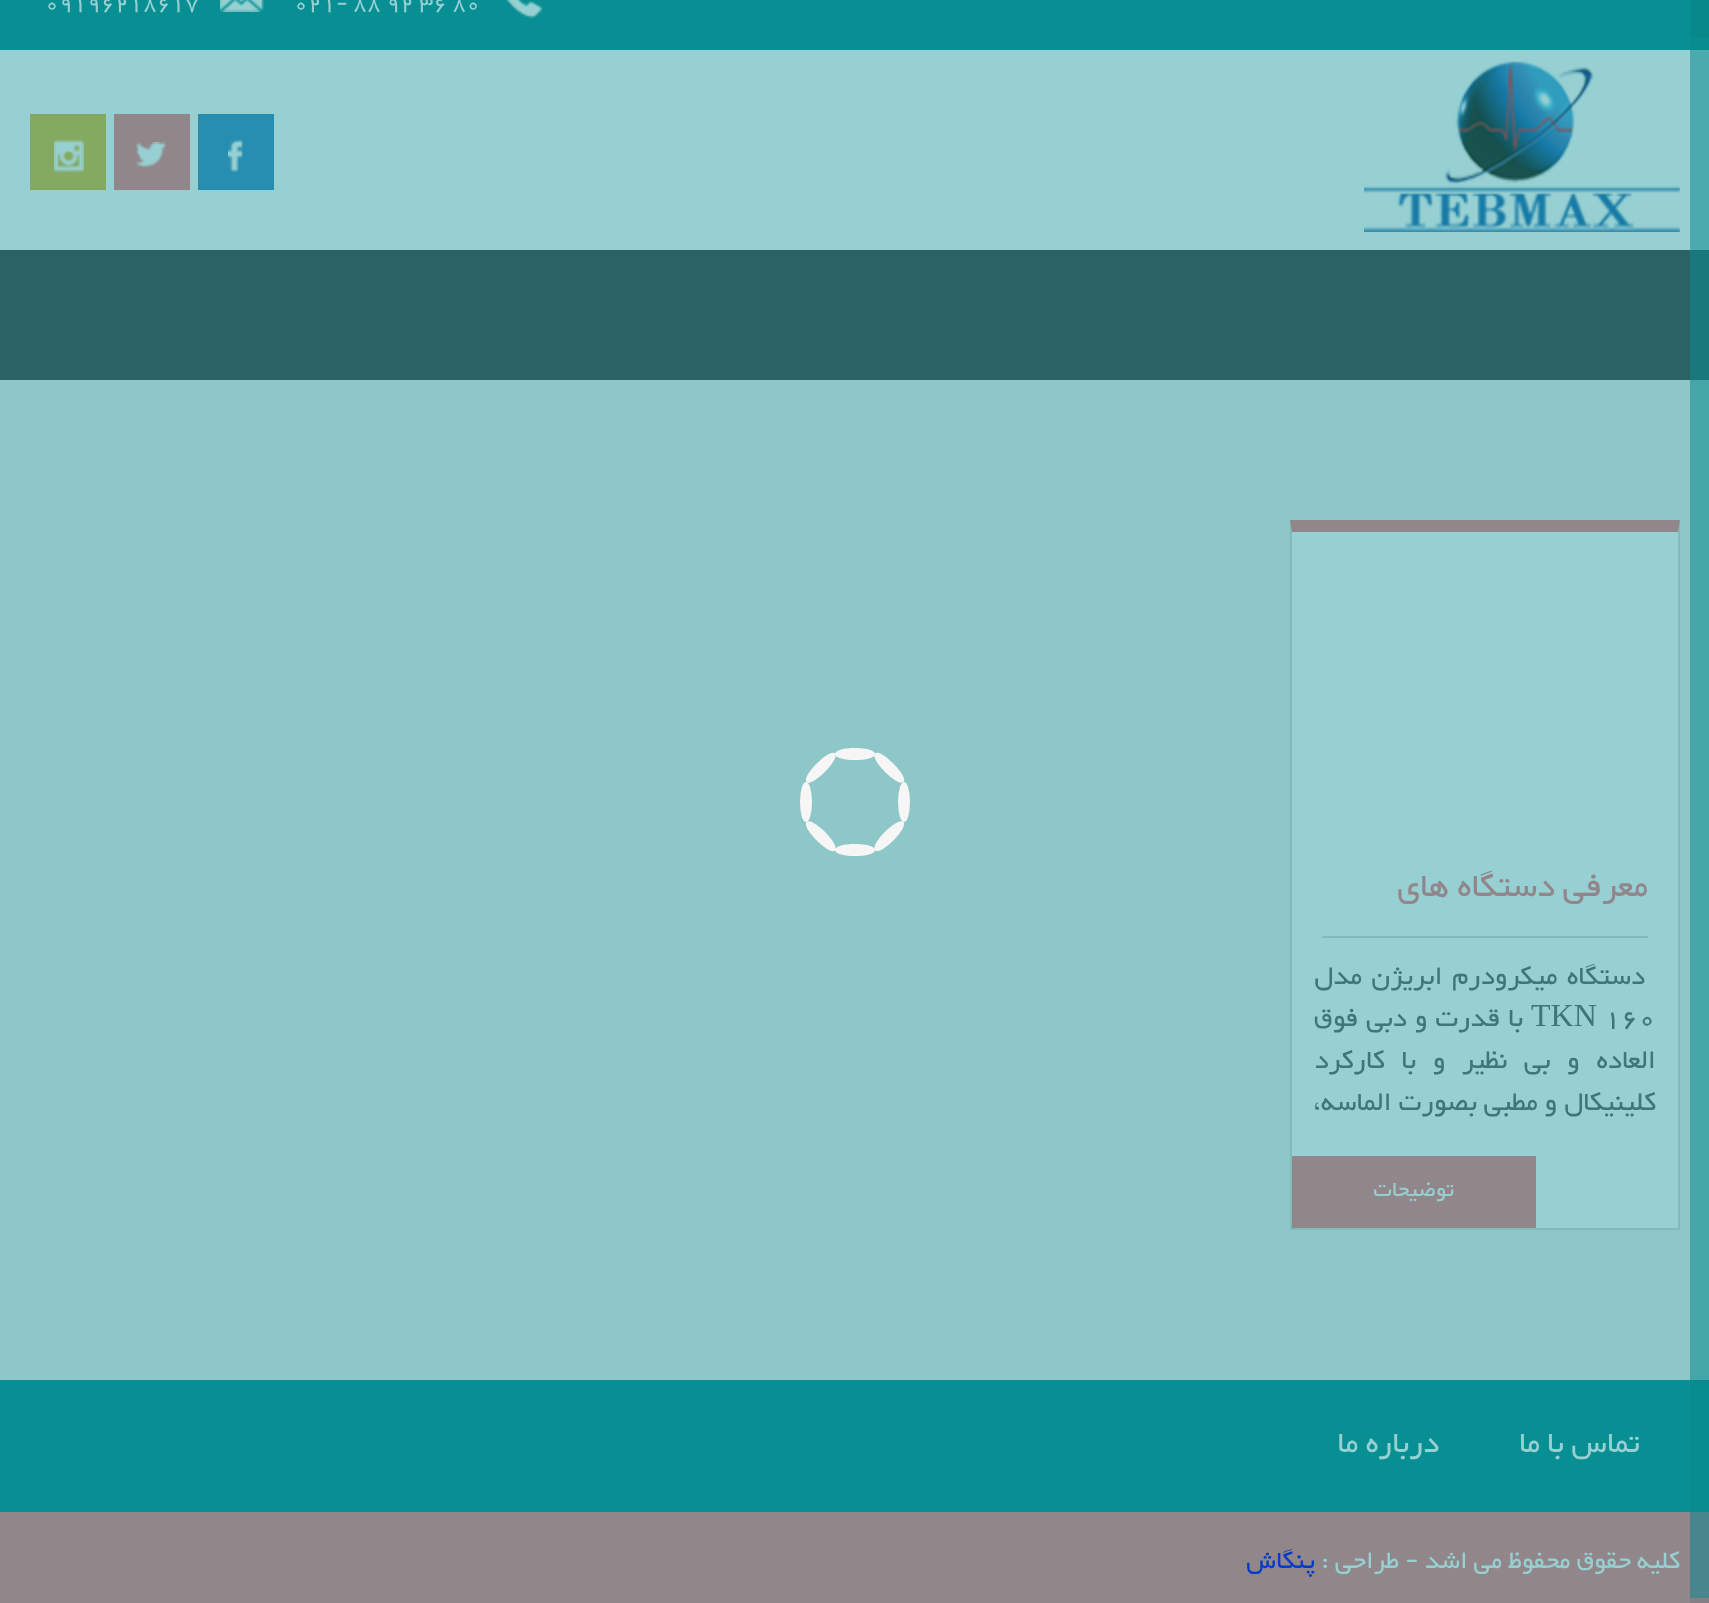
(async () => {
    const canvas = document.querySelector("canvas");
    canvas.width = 1709;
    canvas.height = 1603;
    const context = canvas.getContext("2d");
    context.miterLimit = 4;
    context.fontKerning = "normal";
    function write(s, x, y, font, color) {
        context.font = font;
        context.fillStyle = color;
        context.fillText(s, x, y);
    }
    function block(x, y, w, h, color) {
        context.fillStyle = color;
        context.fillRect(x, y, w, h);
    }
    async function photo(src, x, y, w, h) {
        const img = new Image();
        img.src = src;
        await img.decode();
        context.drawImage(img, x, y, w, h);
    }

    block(0, 0, 1709, 1603, "rgb(142, 199, 200)");
    block(1690, 380, 19, 1000, "rgb(69, 166, 168)");
    block(0, 0, 1690, 50, "rgb(8, 143, 147)");
    block(1690, 0, 19, 38, "rgb(7, 137, 140)");
    block(1690, 38, 19, 12, "rgb(8, 140, 144)");
    await photo("media/1.png", 505, 0, 37, 18);
    write("021- 88 92 36 80", 294, 10, "26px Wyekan", "rgb(151, 208, 210)");
    await photo("media/2.png", 220, 0, 44, 12);
    write("09196218617", 45, 10, "26px Wyekan", "rgb(151, 208, 210)");
    block(0, 50, 1690, 200, "rgb(151, 208, 210)");
    block(1690, 50, 19, 200, "rgb(74, 170, 173)");
    await photo("media/3.png", 1364, 61, 316, 171);
    block(198, 114, 76, 76, "rgb(39, 142, 177)");
    await photo("media/4.png", 228, 140, 15, 32);
    block(114, 114, 76, 76, "rgb(145, 134, 138)");
    await photo("media/5.png", 136, 142, 30, 27);
    block(30, 114, 76, 76, "rgb(132, 170, 97)");
    await photo("media/6.png", 54, 140, 30, 32);
    block(0, 250, 1690, 130, "rgb(42, 99, 101)");
    block(1690, 250, 19, 130, "rgb(24, 120, 123)");
    context.fillStyle = "rgb(246, 246, 246)";
    context.beginPath();
    context.ellipse(904, 802, 6, 20, 0, 0, Math.PI * 2);
    context.fill();
    context.beginPath();
    context.moveTo(903.5, 822);
    context.bezierCurveTo(909, 827.5, 880.5, 856, 875, 850.5);
    context.bezierCurveTo(869.5, 844.5, 897.5, 816.5, 903.5, 822);
    context.closePath();
    context.fill();
    context.beginPath();
    context.moveTo(875, 850);
    context.bezierCurveTo(875, 858, 835, 858, 835, 850);
    context.bezierCurveTo(835, 842, 875, 842, 875, 850);
    context.closePath();
    context.fill();
    context.beginPath();
    context.moveTo(835, 850.5);
    context.bezierCurveTo(829.5, 856, 801, 827.5, 806.5, 822);
    context.bezierCurveTo(812, 816.5, 840.5, 844.5, 835, 850.5);
    context.closePath();
    context.fill();
    context.beginPath();
    context.ellipse(806, 802, 6, 20, 0, 0, Math.PI * 2);
    context.fill();
    context.beginPath();
    context.moveTo(835, 753.5);
    context.bezierCurveTo(840.5, 759, 812, 787.5, 806.5, 782);
    context.bezierCurveTo(801, 776.5, 829.5, 748, 835, 753.5);
    context.closePath();
    context.fill();
    context.beginPath();
    context.moveTo(875, 754);
    context.bezierCurveTo(875, 762, 835, 762, 835, 754);
    context.bezierCurveTo(835, 746, 875, 746, 875, 754);
    context.closePath();
    context.fill();
    context.beginPath();
    context.moveTo(903.5, 782);
    context.bezierCurveTo(897.5, 787.5, 869.5, 759, 875, 753.5);
    context.bezierCurveTo(880.5, 748, 909, 776.5, 903.5, 782);
    context.closePath();
    context.fill();
    block(1290, 520, 390, 710, "rgb(151, 208, 210)");
    context.fillStyle = "rgb(145, 134, 138)";
    context.beginPath();
    context.moveTo(1290, 520);
    context.lineTo(1680, 520);
    context.lineTo(1678, 532);
    context.lineTo(1292, 532);
    context.closePath();
    context.fill();
    context.fillStyle = "rgba(3, 60, 62, 0.15)";
    context.beginPath();
    context.moveTo(1680, 520);
    context.lineTo(1680, 1230);
    context.lineTo(1678, 1228);
    context.lineTo(1678, 532);
    context.closePath();
    context.fill();
    context.beginPath();
    context.moveTo(1680, 1230);
    context.lineTo(1290, 1230);
    context.lineTo(1292, 1228);
    context.lineTo(1678, 1228);
    context.closePath();
    context.fill();
    context.beginPath();
    context.moveTo(1290, 1230);
    context.lineTo(1290, 520);
    context.lineTo(1292, 532);
    context.lineTo(1292, 1228);
    context.closePath();
    context.fill();
    block(1322, 936, 326, 2, "rgb(129, 186, 188)");
    context.direction = "rtl";
    write("معرفی دستگاه های", 1648, 896, "40px Wyekan", "rgb(145, 134, 138)");
    context.wordSpacing = "3px";
    write("دستگاه میکرودرم ابریژن مدل", 1645, 984, "32px Wyekan", "rgb(63, 119, 121)");
    context.wordSpacing = "0px";
    context.direction = "ltr";
    write("160", 1604, 1026, "32px Wyekan", "rgb(63, 119, 121)");
    write("TKN", 1531, 1026, "32px Liberation Serif", "rgb(63, 119, 121)");
    context.wordSpacing = "1.5px";
    context.direction = "rtl";
    write("با قدرت و دبی فوق", 1523, 1026, "32px Wyekan", "rgb(63, 119, 121)");
    context.wordSpacing = "10.25px";
    write("العاده و بی نظیر و با کارکرد", 1656, 1068, "32px Wyekan", "rgb(63, 119, 121)");
    context.wordSpacing = "0.5px";
    write("کلینیکال و مطبی بصورت الماسه،", 1656, 1110, "32px Wyekan", "rgb(63, 119, 121)");
    block(1292, 1156, 244, 72, "rgb(145, 134, 138)");
    context.wordSpacing = "0px";
    write("توضیحات", 1454, 1196, "26px Wyekan", "rgb(151, 208, 210)");
    block(0, 1380, 1690, 132, "rgb(8, 143, 147)");
    block(1690, 1380, 19, 132, "rgb(8, 140, 144)");
    write("تماس با ما", 1640, 1452, "36px Wyekan", "rgb(151, 208, 210)");
    write("درباره ما", 1439, 1452, "36px Wyekan", "rgb(151, 208, 210)");
    block(0, 1512, 1690, 91, "rgb(145, 134, 138)");
    block(1690, 1598, 19, 5, "rgb(134, 128, 132)");
    block(1690, 1512, 19, 86, "rgb(71, 135, 139)");
    write("کلیه حقوق محفوظ می اشد - طراحی :", 1680, 1568, "30px Wyekan", "rgb(151, 208, 210)");
    write("پنگاش", 1315, 1568, "30px Wyekan", "rgb(3, 60, 200)");
})();
